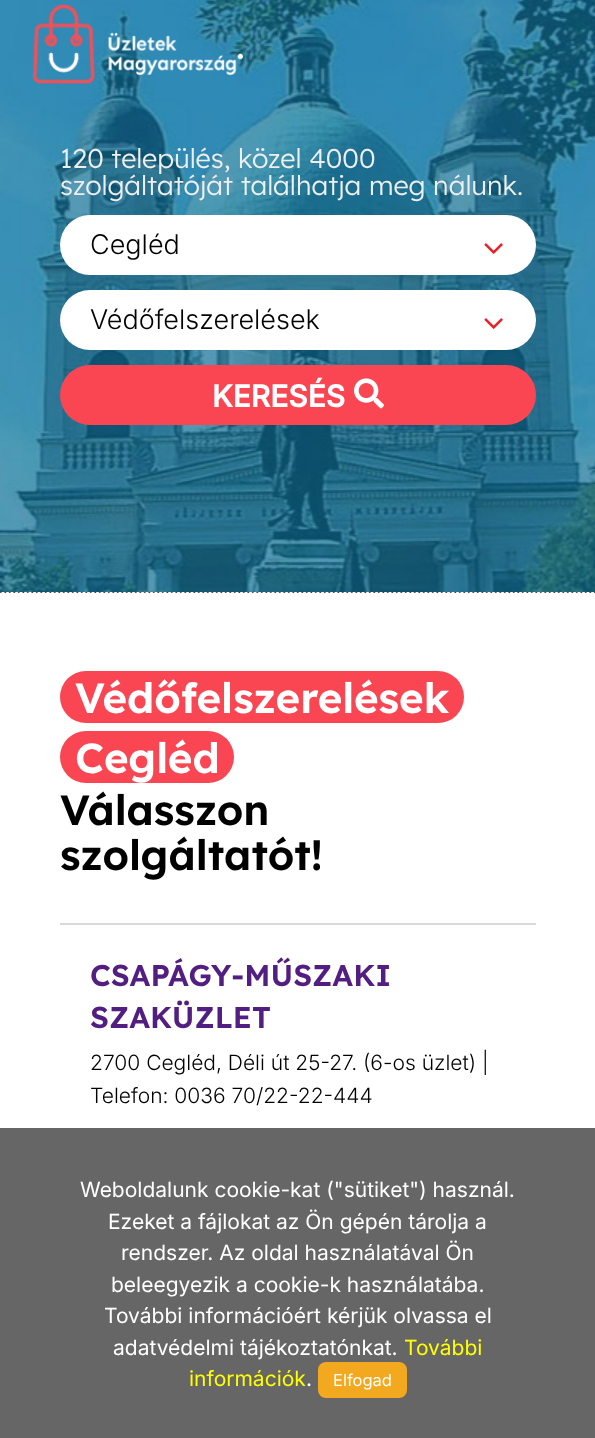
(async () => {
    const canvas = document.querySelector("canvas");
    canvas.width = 595;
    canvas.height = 1438;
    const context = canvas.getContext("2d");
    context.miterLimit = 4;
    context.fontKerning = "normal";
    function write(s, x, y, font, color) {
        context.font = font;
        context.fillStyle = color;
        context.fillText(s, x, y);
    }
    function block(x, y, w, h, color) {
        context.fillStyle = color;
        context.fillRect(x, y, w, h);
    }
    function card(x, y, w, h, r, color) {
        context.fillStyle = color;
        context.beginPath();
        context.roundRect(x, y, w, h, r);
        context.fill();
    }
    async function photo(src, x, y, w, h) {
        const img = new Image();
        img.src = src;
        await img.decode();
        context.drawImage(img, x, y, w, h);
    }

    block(0, 0, 595, 1438, "rgb(255, 255, 255)");
    await photo("media/2.png", 0, 0, 595, 592);
    await photo("media/1.png", 33, 4, 211, 80);
    write("120 település, közel 4000", 60, 168, "300 27px Lexend", "rgb(238, 238, 238)");
    write("szolgáltatóját találhatja meg nálunk.", 60, 195, "300 27px Lexend", "rgb(238, 238, 238)");
    card(60, 215, 476, 60, 30, "rgb(255, 255, 255)");
    write("Cegléd", 90, 254, "300 27px Inter", "rgb(0, 0, 0)");
    await photo("media/3.png", 484, 243, 19, 11);
    card(60, 290, 476, 60, 30, "rgb(255, 255, 255)");
    write("Védőfelszerelések", 90, 329, "300 27px Inter", "rgb(0, 0, 0)");
    await photo("media/3.png", 484, 318, 19, 11);
    card(60, 365, 476, 60, 30, "rgb(250, 70, 82)");
    write("KERESÉS", 212, 407, "bold 30px Inter", "rgb(255, 255, 255)");
    await photo("media/4.png", 354, 378, 30, 31);
    await photo("media/5.png", 0, 592, 595, 1);
    card(60, 671, 404, 52, 26, "rgb(250, 70, 82)");
    write("Védőfelszerelések", 75, 713, "600 42px Lexend", "rgb(255, 255, 255)");
    card(60, 731, 174, 52, 26, "rgb(250, 70, 82)");
    write("Cegléd", 75, 773, "600 42px Lexend", "rgb(255, 255, 255)");
    write("Válasszon", 60, 825, "600 42px Lexend", "rgb(0, 0, 0)");
    write("szolgáltatót!", 60, 870, "600 42px Lexend", "rgb(0, 0, 0)");
    block(60, 923, 476, 2, "rgb(217, 217, 217)");
    write("CSAPÁGY-MŰSZAKI", 90, 986, "600 30px Lexend", "rgb(82, 30, 129)");
    write("SZAKÜZLET", 90, 1028, "600 30px Lexend", "rgb(82, 30, 129)");
    write("2700 Cegléd, Déli út 25-27. (6-os üzlet) |", 90, 1070, "300 21px Inter", "rgb(0, 0, 0)");
    write("Telefon: 0036 70/22-22-444", 90, 1103, "300 21px Inter", "rgb(0, 0, 0)");
    block(0, 1128, 595, 310, "rgb(102, 102, 102)");
    write("Weboldalunk cookie-kat (\"sütiket\") használ.", 80, 1197, "21px Inter", "rgb(255, 255, 255)");
    write("Ezeket a fájlokat az Ön gépén tárolja a", 108, 1229, "21px Inter", "rgb(255, 255, 255)");
    write("rendszer. Az oldal használatával Ön", 121, 1260, "21px Inter", "rgb(255, 255, 255)");
    write("beleegyezik a cookie-k használatába.", 111, 1292, "21px Inter", "rgb(255, 255, 255)");
    write("További információért kérjük olvassa el", 104, 1323, "21px Inter", "rgb(255, 255, 255)");
    write("adatvédelmi tájékoztatónkat.", 113, 1355, "21px Inter", "rgb(255, 255, 255)");
    write("További", 404, 1355, "21px Inter", "rgb(255, 255, 0)");
    write("információk", 189, 1386, "21px Inter", "rgb(255, 255, 0)");
    write(".", 306, 1386, "21px Inter", "rgb(255, 255, 255)");
    card(318, 1362, 89, 36, 8, "rgb(242, 169, 32)");
    write("Elfogad", 333, 1386, "16.5px Inter", "rgb(255, 255, 255)");
})();
